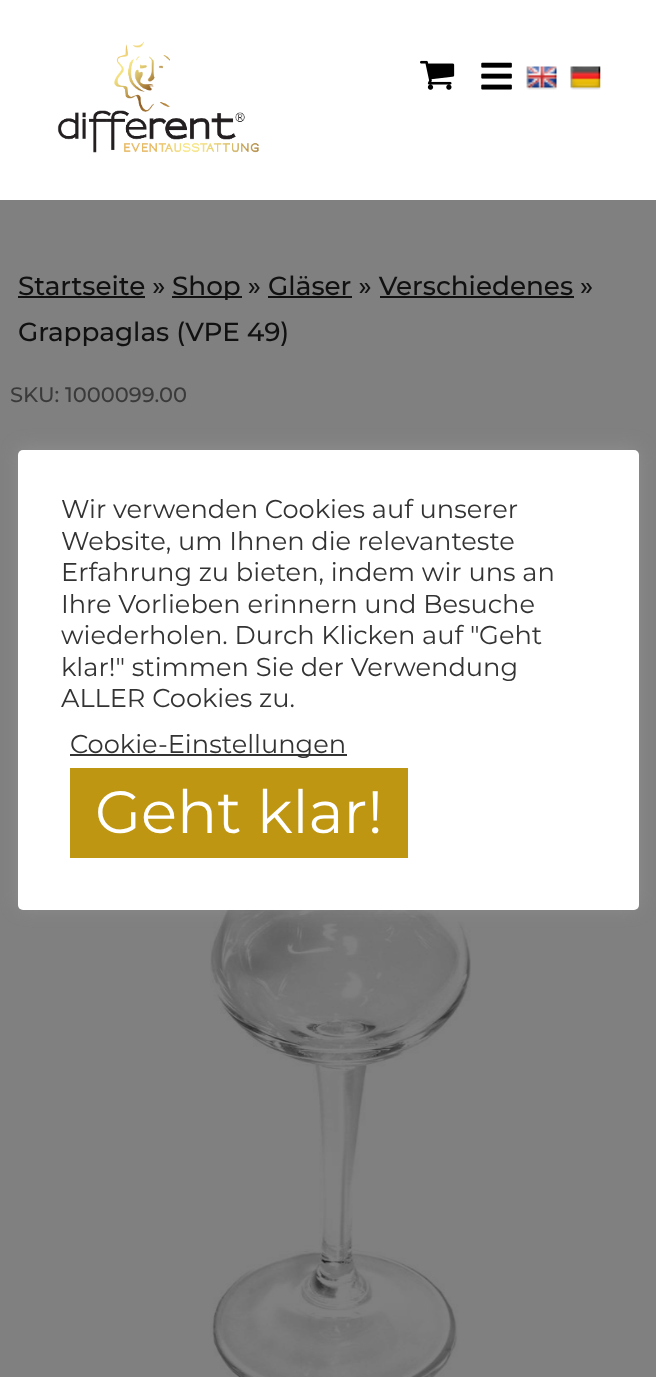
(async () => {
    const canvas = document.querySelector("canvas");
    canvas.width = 656;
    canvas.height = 1377;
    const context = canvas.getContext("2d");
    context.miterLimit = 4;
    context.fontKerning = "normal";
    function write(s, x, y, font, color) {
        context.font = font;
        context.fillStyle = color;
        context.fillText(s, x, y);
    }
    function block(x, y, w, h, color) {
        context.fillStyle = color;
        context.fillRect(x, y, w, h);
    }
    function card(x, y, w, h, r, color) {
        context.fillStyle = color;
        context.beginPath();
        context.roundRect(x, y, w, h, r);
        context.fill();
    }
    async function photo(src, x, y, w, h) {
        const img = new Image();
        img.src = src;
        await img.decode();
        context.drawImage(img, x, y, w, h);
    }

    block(0, 0, 656, 1377, "rgb(128, 128, 128)");
    block(0, 0, 656, 200, "rgb(255, 255, 255)");
    await photo("media/1.png", 481, 62, 31, 28);
    await photo("media/2.png", 57, 41, 202, 112);
    await photo("media/3.png", 420, 60, 35, 30);
    await photo("media/4.png", 526, 66, 31, 24);
    await photo("media/5.png", 570, 66, 31, 24);
    write("Startseite »", 18, 295, "500 26.25px Montserrat", "rgb(17, 17, 17)");
    block(18, 296, 127, 2, "rgb(17, 17, 17)");
    block(172, 296, 70, 2, "rgb(17, 17, 17)");
    write("Shop » Gläser » Verschiedenes »", 172, 295, "500 26.25px Montserrat", "rgb(17, 17, 17)");
    block(268, 296, 84, 2, "rgb(17, 17, 17)");
    block(380, 296, 194, 2, "rgb(17, 17, 17)");
    write("Grappaglas (VPE 49)", 18, 341, "500 26.25px Montserrat", "rgb(17, 17, 17)");
    write("SKU: 1000099.00", 10, 402, "500 21px Montserrat", "rgb(58, 58, 58)");
    await photo("media/6.png", 210, 910, 261, 467);
    context.fillStyle = "rgba(172, 171, 171, 0.3)";
    context.filter = "blur(9px)";
    context.beginPath();
    context.roundRect(18, 448, 621, 460, 5);
    context.fill();
    context.filter = "none";
    card(18, 450, 621, 460, 5, "rgb(255, 255, 255)");
    write("Wir verwenden Cookies auf unserer", 61, 518, "25.7px Montserrat", "rgb(51, 51, 51)");
    write("Website, um Ihnen die relevanteste", 61, 550, "25.7px Montserrat", "rgb(51, 51, 51)");
    write("Erfahrung zu bieten, indem wir uns an", 61, 581, "25.7px Montserrat", "rgb(51, 51, 51)");
    write("Ihre Vorlieben erinnern und Besuche", 61, 613, "25.7px Montserrat", "rgb(51, 51, 51)");
    write("wiederholen. Durch Klicken auf \"Geht", 61, 644, "25.7px Montserrat", "rgb(51, 51, 51)");
    write("klar!\" stimmen Sie der Verwendung", 61, 676, "25.7px Montserrat", "rgb(51, 51, 51)");
    write("ALLER Cookies zu.", 61, 707, "25.7px Montserrat", "rgb(51, 51, 51)");
    block(70, 754, 277, 2, "rgb(51, 51, 51)");
    write("Cookie-Einstellungen", 70, 753, "25.7px Montserrat", "rgb(51, 51, 51)");
    block(70, 768, 338, 90, "rgb(190, 150, 18)");
    write("Geht klar!", 95, 833, "59.5px Montserrat", "rgb(255, 255, 255)");
})();
